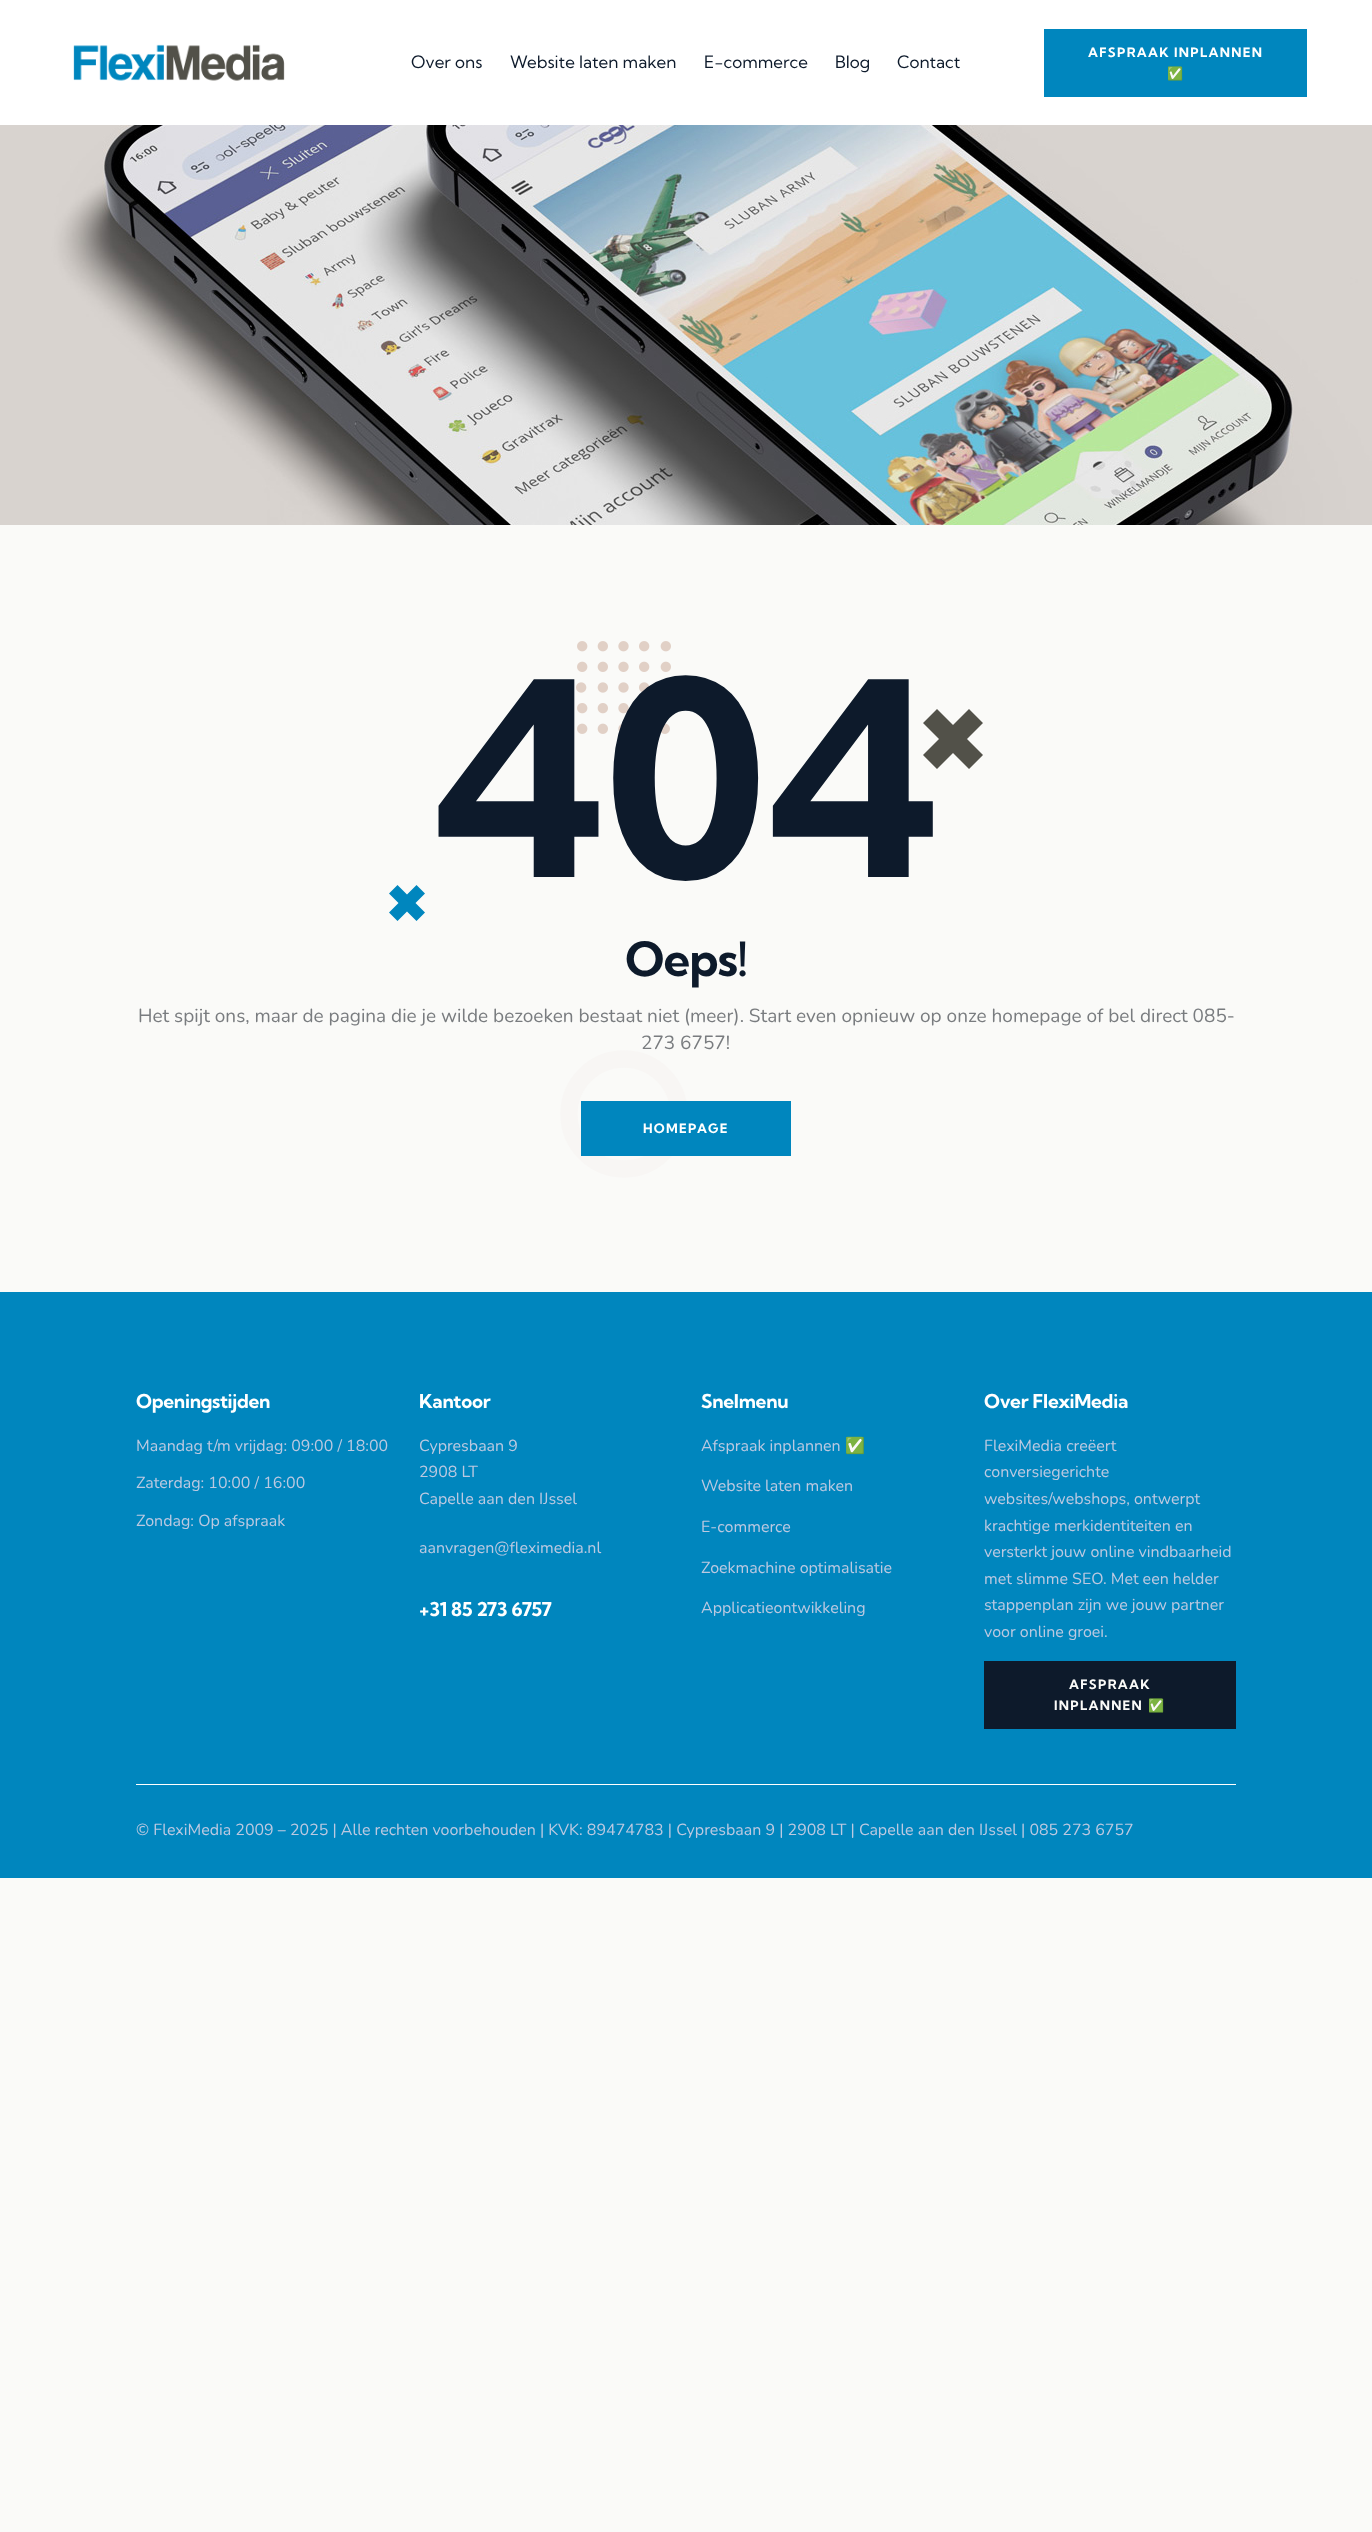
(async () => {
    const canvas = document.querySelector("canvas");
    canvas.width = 1372;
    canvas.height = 2532;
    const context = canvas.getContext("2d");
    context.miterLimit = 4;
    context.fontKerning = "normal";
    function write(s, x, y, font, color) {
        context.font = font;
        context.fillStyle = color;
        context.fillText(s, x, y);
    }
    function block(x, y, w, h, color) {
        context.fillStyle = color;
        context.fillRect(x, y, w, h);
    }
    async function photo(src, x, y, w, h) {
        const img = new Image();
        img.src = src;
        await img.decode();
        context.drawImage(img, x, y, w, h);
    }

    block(0, 0, 1372, 2532, "rgb(250, 250, 248)");
    block(0, 0, 1372, 125, "rgb(255, 255, 255)");
    await photo("media/1.png", 73, 44, 212, 37);
    write("Over ons", 411, 68, "17px Kumbh Sans", "rgb(13, 26, 43)");
    write("Website laten maken", 510, 68, "17px Kumbh Sans", "rgb(13, 26, 43)");
    write("E-commerce", 704, 68, "17px Kumbh Sans", "rgb(13, 26, 43)");
    write("Blog", 835, 68, "17px Kumbh Sans", "rgb(13, 26, 43)");
    write("Contact", 897, 68, "17px Kumbh Sans", "rgb(13, 26, 43)");
    block(1044, 29, 263, 68, "rgb(0, 134, 190)");
    context.letterSpacing = "1.25px";
    write("AFSPRAAK INPLANNEN", 1088, 57, "bold 13px Kumbh Sans", "rgb(255, 255, 255)");
    write("✅", 1167, 78, "bold 13px Noto Color Emoji", "rgb(255, 255, 255)");
    await photo("media/2.png", 0, 125, 1372, 400);
    await photo("media/3.png", 576, 641, 95, 93);
    context.fillStyle = "rgb(82, 81, 73)";
    context.beginPath();
    context.moveTo(923, 755);
    context.lineTo(939, 739);
    context.lineTo(923, 723);
    context.lineTo(937, 709);
    context.lineTo(953, 725);
    context.lineTo(969, 709);
    context.lineTo(983, 723);
    context.lineTo(967, 739);
    context.lineTo(983, 755);
    context.lineTo(969, 769);
    context.lineTo(953, 753);
    context.lineTo(937, 769);
    context.closePath();
    context.fill();
    context.fillStyle = "rgb(0, 134, 190)";
    context.beginPath();
    context.moveTo(389, 912.5);
    context.lineTo(398.5, 903);
    context.lineTo(389, 893.5);
    context.lineTo(397.5, 885);
    context.lineTo(407, 894.5);
    context.lineTo(416.5, 885);
    context.lineTo(425, 893.5);
    context.lineTo(415.5, 903);
    context.lineTo(425, 912.5);
    context.lineTo(416.5, 921);
    context.lineTo(407, 911.5);
    context.lineTo(397.5, 921);
    context.closePath();
    context.fill();
    context.beginPath();
    context.arc(624, 1114, 55, 0, Math.PI * 2);
    context.strokeStyle = "rgb(248, 246, 244)";
    context.lineWidth = 17.3;
    context.stroke();
    context.letterSpacing = "0px";
    write("404", 433, 877, "bold 270px Kumbh Sans", "rgb(13, 26, 43)");
    context.letterSpacing = "-1px";
    write("Oeps!", 625, 976, "bold 47px Kumbh Sans", "rgb(13, 26, 43)");
    context.letterSpacing = "0px";
    write("Het spijt ons, maar de pagina die je wilde bezoeken bestaat niet (meer). Start even opnieuw op onze homepage of bel direct 085-", 138, 1022, "19px Nunito", "rgb(121, 124, 127)");
    write("273 6757!", 641, 1049, "19px Nunito", "rgb(121, 124, 127)");
    block(581, 1101, 210, 55, "rgb(0, 134, 190)");
    context.letterSpacing = "1.25px";
    write("HOMEPAGE", 643, 1133, "bold 13px Kumbh Sans", "rgb(255, 255, 255)");
    block(0, 1292, 1372, 586, "rgb(0, 134, 190)");
    context.letterSpacing = "-0.25px";
    write("Openingstijden", 136, 1408, "bold 19px Kumbh Sans", "rgb(255, 255, 255)");
    context.letterSpacing = "0px";
    write("Maandag t/m vrijdag: 09:00 / 18:00", 136, 1451, "16px Nunito", "rgb(188, 201, 225)");
    write("Zaterdag: 10:00 / 16:00", 136, 1488, "16px Nunito", "rgb(188, 201, 225)");
    write("Zondag: Op afspraak", 136, 1526, "16px Nunito", "rgb(188, 201, 225)");
    context.letterSpacing = "-0.25px";
    write("Kantoor", 419, 1408, "bold 19px Kumbh Sans", "rgb(255, 255, 255)");
    context.letterSpacing = "0px";
    write("Cypresbaan 9", 419, 1451, "16px Nunito", "rgb(188, 201, 225)");
    write("2908 LT", 419, 1477, "16px Nunito", "rgb(188, 201, 225)");
    write("Capelle aan den IJssel", 419, 1504, "16px Nunito", "rgb(188, 201, 225)");
    write("aanvragen@fleximedia.nl", 419, 1553, "16px Nunito", "rgb(188, 201, 225)");
    context.letterSpacing = "-0.25px";
    write("+31 85 273 6757", 419, 1616, "bold 19px Kumbh Sans", "rgb(255, 255, 255)");
    write("Snelmenu", 701, 1408, "bold 19px Kumbh Sans", "rgb(255, 255, 255)");
    context.letterSpacing = "0px";
    write("Afspraak inplannen", 701, 1451, "16px Nunito", "rgb(188, 201, 225)");
    write("✅", 845, 1451, "16px Noto Color Emoji", "rgb(188, 201, 225)");
    write("Website laten maken", 701, 1491, "16px Nunito", "rgb(188, 201, 225)");
    write("E-commerce", 701, 1532, "16px Nunito", "rgb(188, 201, 225)");
    write("Zoekmachine optimalisatie", 701, 1573, "16px Nunito", "rgb(188, 201, 225)");
    write("Applicatieontwikkeling", 701, 1613, "16px Nunito", "rgb(188, 201, 225)");
    context.letterSpacing = "-0.25px";
    write("Over FlexiMedia", 984, 1408, "bold 19px Kumbh Sans", "rgb(255, 255, 255)");
    context.letterSpacing = "0px";
    write("FlexiMedia creëert", 984, 1451, "16px Nunito", "rgb(188, 201, 225)");
    write("conversiegerichte", 984, 1477, "16px Nunito", "rgb(188, 201, 225)");
    write("websites/webshops, ontwerpt", 984, 1504, "16px Nunito", "rgb(188, 201, 225)");
    write("krachtige merkidentiteiten en", 984, 1531, "16px Nunito", "rgb(188, 201, 225)");
    write("versterkt jouw online vindbaarheid", 984, 1557, "16px Nunito", "rgb(188, 201, 225)");
    write("met slimme SEO. Met een helder", 984, 1584, "16px Nunito", "rgb(188, 201, 225)");
    write("stappenplan zijn we jouw partner", 984, 1610, "16px Nunito", "rgb(188, 201, 225)");
    write("voor online groei.", 984, 1637, "16px Nunito", "rgb(188, 201, 225)");
    block(984, 1661, 252, 68, "rgb(13, 26, 43)");
    context.letterSpacing = "1.25px";
    write("AFSPRAAK", 1069, 1689, "bold 13px Kumbh Sans", "rgb(250, 250, 248)");
    write("INPLANNEN", 1054, 1710, "bold 13px Kumbh Sans", "rgb(250, 250, 248)");
    write("✅", 1148, 1710, "bold 13px Noto Color Emoji", "rgb(250, 250, 248)");
    block(136, 1784, 1100, 1, "rgb(255, 255, 255)");
    context.letterSpacing = "0px";
    write("© FlexiMedia 2009 – 2025 | Alle rechten voorbehouden | KVK: 89474783 | Cypresbaan 9 | 2908 LT | Capelle aan den IJssel | 085 273 6757", 136, 1835, "16px Nunito", "rgb(188, 201, 225)");
})();
